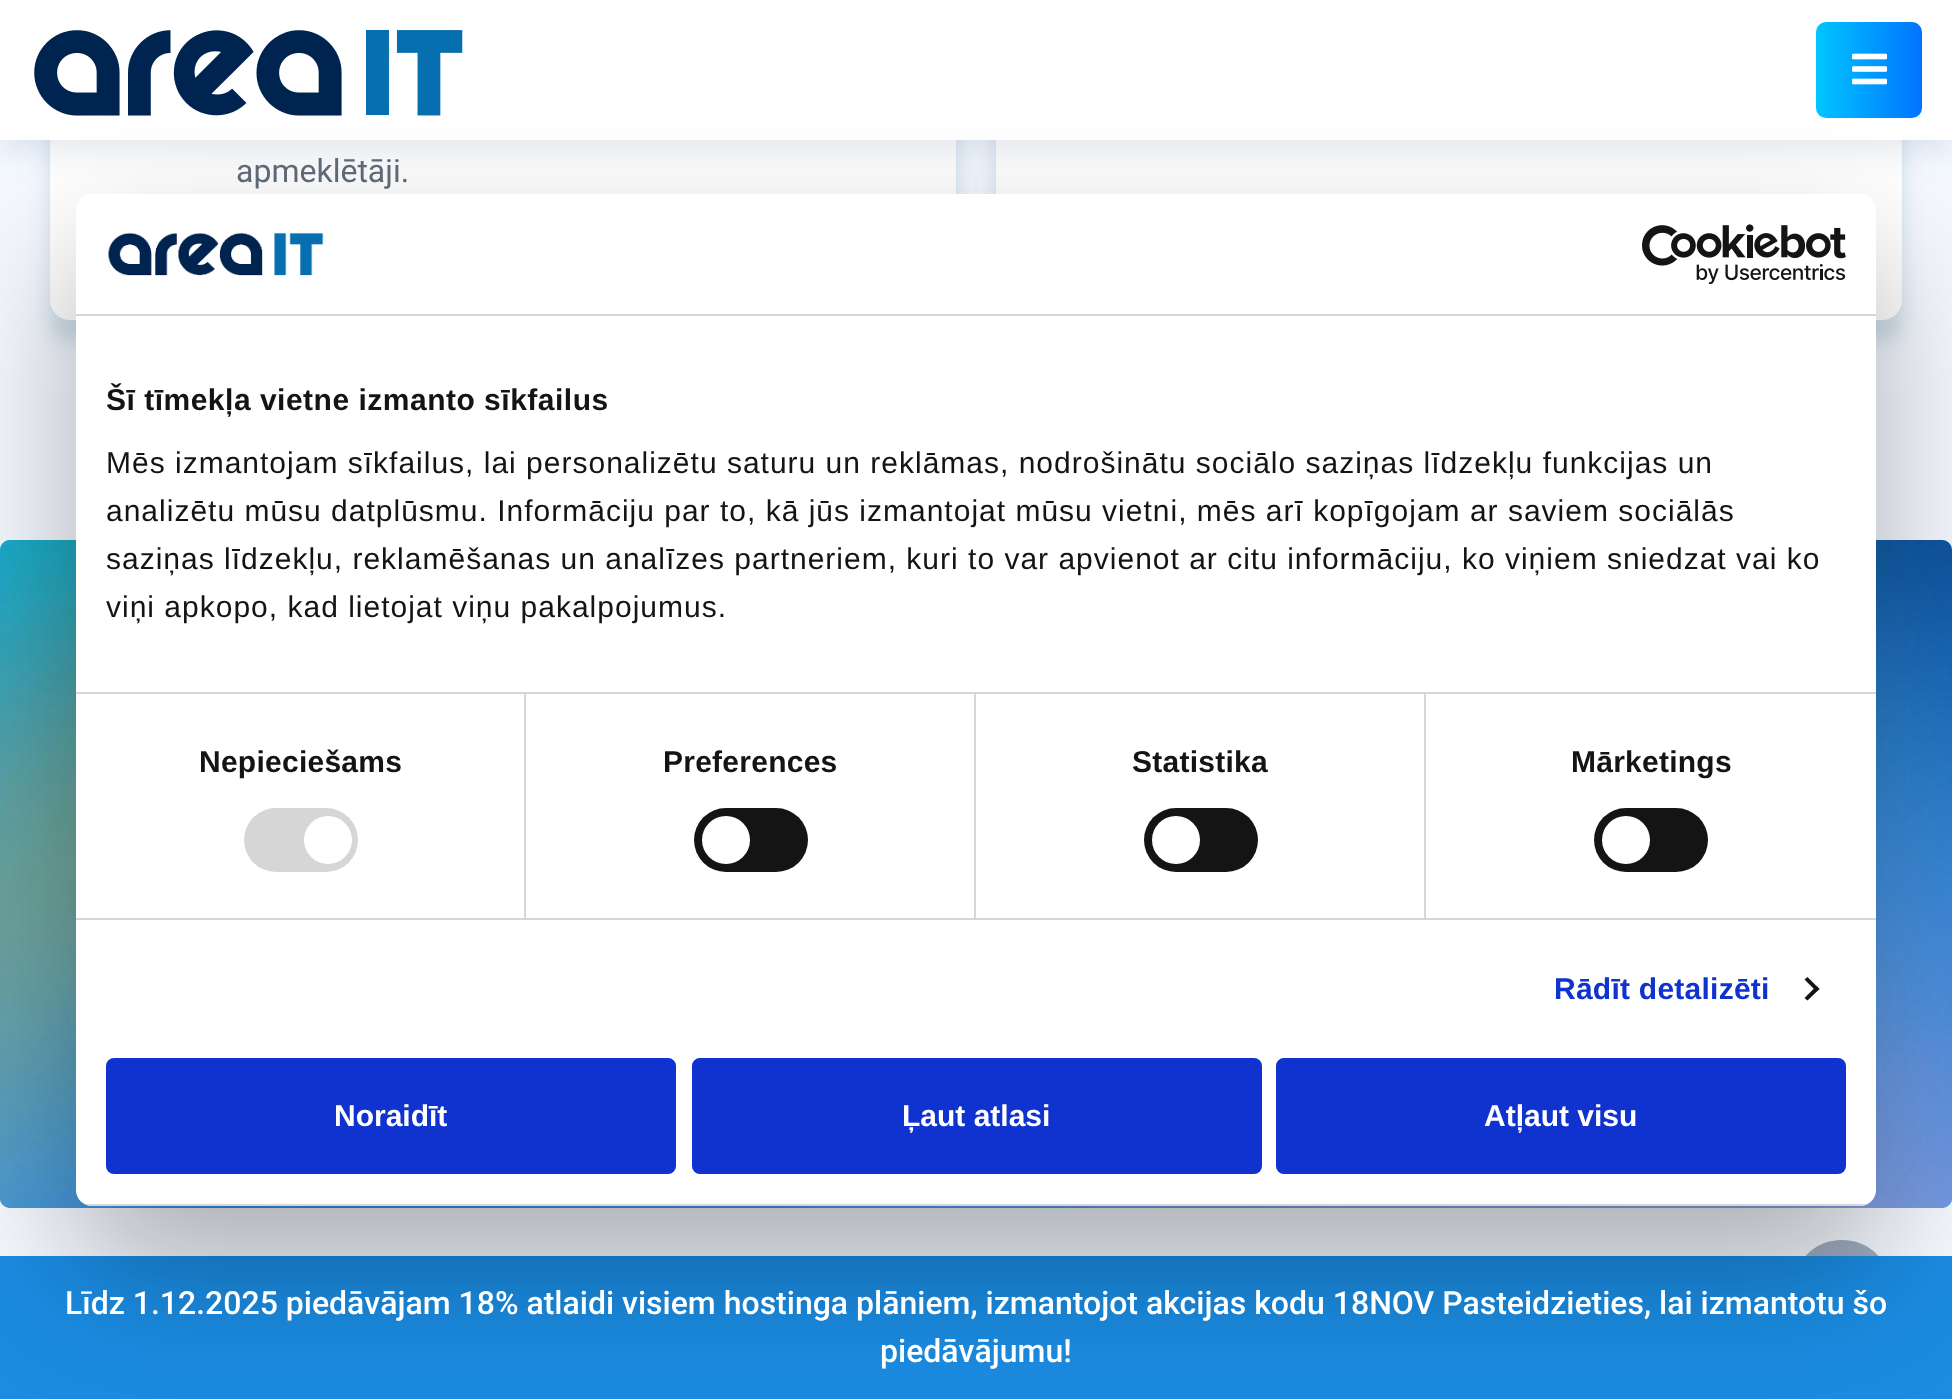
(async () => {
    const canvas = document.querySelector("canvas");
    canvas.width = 1952;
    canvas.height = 1399;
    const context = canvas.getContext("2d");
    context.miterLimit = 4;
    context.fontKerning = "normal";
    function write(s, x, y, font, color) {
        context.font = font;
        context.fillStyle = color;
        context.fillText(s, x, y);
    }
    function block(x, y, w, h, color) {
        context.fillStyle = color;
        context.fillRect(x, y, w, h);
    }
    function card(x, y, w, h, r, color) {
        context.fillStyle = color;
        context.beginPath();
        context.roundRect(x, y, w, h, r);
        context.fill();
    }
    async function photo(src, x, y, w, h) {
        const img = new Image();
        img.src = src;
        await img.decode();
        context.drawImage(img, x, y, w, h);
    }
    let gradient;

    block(0, 0, 1952, 1399, "rgb(245, 249, 255)");
    context.fillStyle = "rgba(0, 84, 125, 0.16)";
    context.filter = "blur(10px)";
    context.beginPath();
    context.roundRect(50, -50, 906, 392, 20);
    context.fill();
    context.filter = "none";
    card(50, -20, 906, 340, 20, "rgb(255, 255, 255)");
    context.fillStyle = "rgba(0, 84, 125, 0.16)";
    context.filter = "blur(10px)";
    context.beginPath();
    context.roundRect(996, -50, 906, 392, 20);
    context.fill();
    context.filter = "none";
    card(996, -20, 906, 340, 20, "rgb(255, 255, 255)");
    context.fillStyle = "rgba(0, 33, 85, 0.1)";
    context.filter = "blur(15px)";
    context.beginPath();
    context.rect(0, 10, 1952, 140);
    context.fill();
    context.filter = "none";
    block(0, 0, 1952, 140, "rgb(255, 255, 255)");
    await photo("media/1.png", 34, 30, 429, 86);
    gradient = context.createLinearGradient(1816, 70, 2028, 70);
    gradient.addColorStop(0, "rgb(0, 198, 255)");
    gradient.addColorStop(0.51, "rgb(0, 114, 255)");
    gradient.addColorStop(1, "rgb(0, 198, 255)");
    context.fillStyle = gradient;
    context.beginPath();
    context.roundRect(1816, 22, 106, 96, 10);
    context.fill();
    await photo("media/2.png", 1852, 53, 35, 32);
    write("apmeklētāji.", 236, 182, "32px Roboto", "rgb(96, 108, 122)");
    card(0, 540, 1952, 668, 10, "rgb(0, 198, 255)");
    await photo("media/3.png", 0, 540, 1952, 668);
    context.fillStyle = "rgb(159, 174, 194)";
    context.beginPath();
    context.arc(1842, 1290, 49, 0, Math.PI * 2);
    context.fill();
    context.strokeStyle = "rgb(159, 174, 194)";
    context.lineWidth = 2;
    context.stroke();
    block(0, 1256, 1952, 143, "rgb(27, 140, 226)");
    context.fillStyle = "rgba(0, 0, 0, 0.3)";
    context.filter = "blur(68px)";
    context.beginPath();
    context.roundRect(76, 258, 1800, 1012, 16);
    context.fill();
    context.filter = "none";
    card(76, 194, 1800, 1012, 16, "rgb(255, 255, 255)");
    block(76, 314, 1800, 2, "rgb(214, 214, 214)");
    await photo("media/4.png", 107, 232, 217, 44);
    await photo("media/5.png", 1642, 224, 204, 60);
    block(76, 692, 1800, 2, "rgb(214, 214, 214)");
    context.letterSpacing = "0.5px";
    write("Šī tīmekļa vietne izmanto sīkfailus", 106, 410, "bold 30px Liberation Sans", "rgb(20, 20, 20)");
    context.letterSpacing = "1px";
    write("Mēs izmantojam sīkfailus, lai personalizētu saturu un reklāmas, nodrošinātu sociālo saziņas līdzekļu funkcijas un", 106, 473, "30px Liberation Sans", "rgb(20, 20, 20)");
    write("analizētu mūsu datplūsmu. Informāciju par to, kā jūs izmantojat mūsu vietni, mēs arī kopīgojam ar saviem sociālās", 106, 521, "30px Liberation Sans", "rgb(20, 20, 20)");
    write("saziņas līdzekļu, reklamēšanas un analīzes partneriem, kuri to var apvienot ar citu informāciju, ko viņiem sniedzat vai ko", 106, 569, "30px Liberation Sans", "rgb(20, 20, 20)");
    write("viņi apkopo, kad lietojat viņu pakalpojumus.", 106, 617, "30px Liberation Sans", "rgb(20, 20, 20)");
    block(76, 918, 1800, 2, "rgb(214, 214, 214)");
    block(524, 694, 2, 224, "rgb(214, 214, 214)");
    context.letterSpacing = "0.25px";
    write("Nepieciešams", 199, 772, "bold 30px Liberation Sans", "rgb(20, 20, 20)");
    card(244, 808, 114, 64, 32, "rgb(214, 214, 214)");
    context.fillStyle = "rgb(255, 255, 255)";
    context.beginPath();
    context.arc(328, 840, 24, 0, Math.PI * 2);
    context.fill();
    block(974, 694, 2, 224, "rgb(214, 214, 214)");
    write("Preferences", 663, 772, "bold 30px Liberation Sans", "rgb(20, 20, 20)");
    card(694, 808, 114, 64, 32, "rgb(20, 20, 20)");
    context.fillStyle = "rgb(255, 255, 255)";
    context.beginPath();
    context.arc(726, 840, 24, 0, Math.PI * 2);
    context.fill();
    block(1424, 694, 2, 224, "rgb(214, 214, 214)");
    write("Statistika", 1132, 772, "bold 30px Liberation Sans", "rgb(20, 20, 20)");
    card(1144, 808, 114, 64, 32, "rgb(20, 20, 20)");
    context.fillStyle = "rgb(255, 255, 255)";
    context.beginPath();
    context.arc(1176, 840, 24, 0, Math.PI * 2);
    context.fill();
    write("Mārketings", 1571, 772, "bold 30px Liberation Sans", "rgb(20, 20, 20)");
    card(1594, 808, 114, 64, 32, "rgb(20, 20, 20)");
    context.fillStyle = "rgb(255, 255, 255)";
    context.beginPath();
    context.arc(1626, 840, 24, 0, Math.PI * 2);
    context.fill();
    write("Rādīt detalizēti", 1554, 999, "bold 30px Liberation Sans", "rgb(16, 50, 207)");
    context.fillStyle = "rgb(20, 20, 20)";
    context.beginPath();
    context.moveTo(1807.5, 977);
    context.lineTo(1819.5, 989);
    context.lineTo(1816.5, 991.5);
    context.lineTo(1804.5, 979.5);
    context.closePath();
    context.fill();
    context.beginPath();
    context.moveTo(1816.5, 986);
    context.lineTo(1819.5, 989);
    context.lineTo(1807.5, 1000.5);
    context.lineTo(1804.5, 998);
    context.closePath();
    context.fill();
    context.save();
    context.beginPath();
    context.roundRect(76, 194, 1800, 1012, 16);
    context.clip();
    block(76, 1204, 1800, 2, "rgb(214, 214, 214)");
    context.restore();
    context.fillStyle = "rgb(16, 50, 207)";
    context.beginPath();
    context.roundRect(108, 1060, 566, 112, 6);
    context.fill();
    context.strokeStyle = "rgb(16, 50, 207)";
    context.lineWidth = 4;
    context.stroke();
    context.letterSpacing = "0px";
    write("Noraidīt", 334, 1126, "bold 30px Liberation Sans", "rgb(255, 255, 255)");
    context.fillStyle = "rgb(16, 50, 207)";
    context.beginPath();
    context.roundRect(694, 1060, 566, 112, 6);
    context.fill();
    context.stroke();
    write("Ļaut atlasi", 902, 1126, "bold 30px Liberation Sans", "rgb(255, 255, 255)");
    context.fillStyle = "rgb(16, 50, 207)";
    context.beginPath();
    context.roundRect(1278, 1060, 566, 112, 6);
    context.fill();
    context.stroke();
    write("Atļaut visu", 1484, 1126, "bold 30px Liberation Sans", "rgb(255, 255, 255)");
    write("Līdz 1.12.2025 piedāvājam 18% atlaidi visiem hostinga plāniem, izmantojot akcijas kodu 18NOV Pasteidzieties, lai izmantotu šo", 65, 1314, "500 32px Roboto", "rgb(255, 255, 255)");
    write("piedāvājumu!", 880, 1362, "500 32px Roboto", "rgb(255, 255, 255)");
})();
